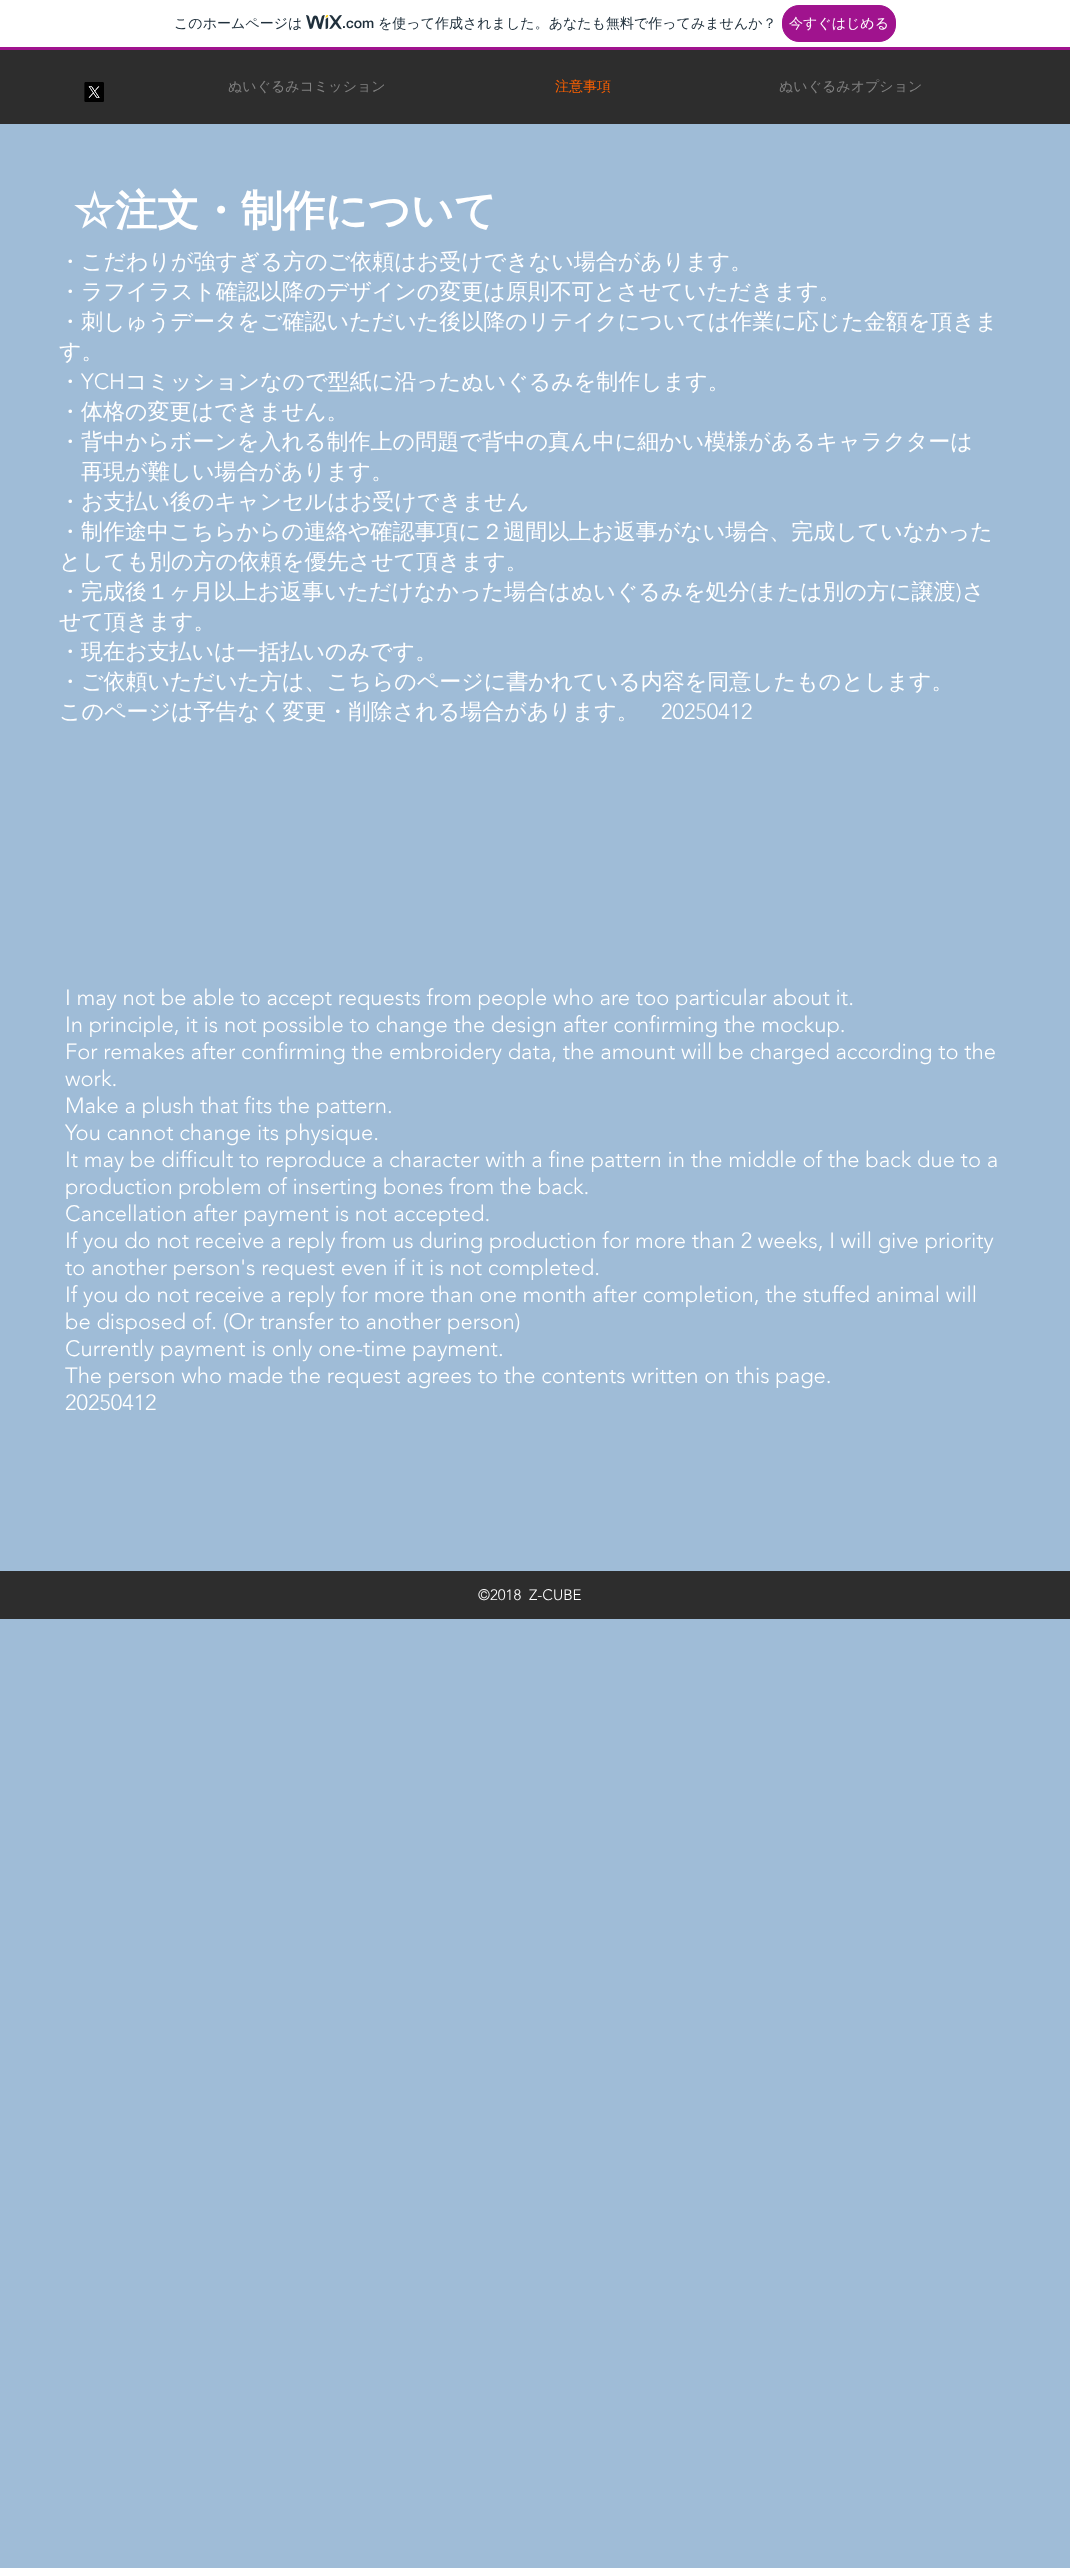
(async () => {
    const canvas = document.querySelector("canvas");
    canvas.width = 1070;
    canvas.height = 2568;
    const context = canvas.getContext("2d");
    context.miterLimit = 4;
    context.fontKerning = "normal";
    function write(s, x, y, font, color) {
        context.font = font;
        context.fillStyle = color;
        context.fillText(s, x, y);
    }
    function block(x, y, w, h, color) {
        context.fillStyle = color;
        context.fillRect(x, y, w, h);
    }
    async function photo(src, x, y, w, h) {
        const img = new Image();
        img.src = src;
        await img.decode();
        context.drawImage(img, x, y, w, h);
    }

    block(0, 0, 1070, 2568, "rgb(255, 255, 255)");
    block(0, 47, 1070, 3, "rgb(160, 19, 142)");
    write("このホームページは", 174, 28, "500 14px WenQuanYi Zen Hei", "rgb(32, 48, 60)");
    await photo("media/1.png", 306, 15, 36, 15);
    write(".com", 342, 28, "500 14px 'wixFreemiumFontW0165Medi'", "rgb(32, 48, 60)");
    write("を使って作成されました。あなたも無料で作ってみませんか？", 378, 28, "500 14px WenQuanYi Zen Hei", "rgb(32, 48, 60)");
    context.fillStyle = "rgb(160, 19, 142)";
    context.beginPath();
    context.roundRect(782.5, 5.5, 113, 36, 16.5);
    context.fill();
    context.strokeStyle = "rgb(160, 19, 142)";
    context.stroke();
    write("今すぐはじめる", 789, 28, "500 14px WenQuanYi Zen Hei", "rgb(255, 255, 255)");
    block(0, 50, 1070, 74, "rgb(45, 45, 45)");
    await photo("media/2.png", 84, 82, 20, 20);
    write("ぬいぐるみコミッション", 228, 91, "500 14px WenQuanYi Zen Hei", "rgb(129, 129, 129)");
    write("注意事項", 555, 91, "500 14px WenQuanYi Zen Hei", "rgb(252, 96, 0)");
    write("ぬいぐるみオプション", 779, 91, "500 14px WenQuanYi Zen Hei", "rgb(129, 129, 129)");
    block(0, 124, 1070, 2444, "rgb(159, 188, 215)");
    write("☆注文・制作について", 73, 225, "bold 42px WenQuanYi Zen Hei", "rgb(255, 255, 255)");
    write("・こだわりが強すぎる方のご依頼はお受けできない場合があります。", 59, 269, "500 22px WenQuanYi Zen Hei", "rgb(255, 255, 255)");
    write("・ラフイラスト確認以降のデザインの変更は原則不可とさせていただきます。", 59, 299, "500 22px WenQuanYi Zen Hei", "rgb(255, 255, 255)");
    write("・刺しゅうデータをご確認いただいた後以降のリテイクについては作業に応じた金額を頂きま", 59, 329, "500 22px WenQuanYi Zen Hei", "rgb(255, 255, 255)");
    write("す。", 59, 359, "500 22px WenQuanYi Zen Hei", "rgb(255, 255, 255)");
    write("・", 59, 389, "500 22px WenQuanYi Zen Hei", "rgb(255, 255, 255)");
    write("YCH", 81, 389, "300 22px 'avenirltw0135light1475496'", "rgb(255, 255, 255)");
    write("コミッションなので型紙に沿ったぬいぐるみを制作します。", 125, 389, "500 22px WenQuanYi Zen Hei", "rgb(255, 255, 255)");
    write("・体格の変更はできません。", 59, 419, "500 22px WenQuanYi Zen Hei", "rgb(255, 255, 255)");
    write("・背中からボーンを入れる制作上の問題で背中の真ん中に細かい模様があるキャラクターは", 59, 449, "500 22px WenQuanYi Zen Hei", "rgb(255, 255, 255)");
    write("再現が難しい場合があります。", 81, 479, "500 22px WenQuanYi Zen Hei", "rgb(255, 255, 255)");
    write("・お支払い後のキャンセルはお受けできません", 59, 509, "500 22px WenQuanYi Zen Hei", "rgb(255, 255, 255)");
    write("・制作途中こちらからの連絡や確認事項に２週間以上お返事がない場合、完成していなかった", 59, 539, "500 22px WenQuanYi Zen Hei", "rgb(255, 255, 255)");
    write("としても別の方の依頼を優先させて頂きます。", 59, 569, "500 22px WenQuanYi Zen Hei", "rgb(255, 255, 255)");
    write("・完成後１ヶ月以上お返事いただけなかった場合はぬいぐるみを処分", 59, 599, "500 22px WenQuanYi Zen Hei", "rgb(255, 255, 255)");
    write("(", 750, 599, "300 22px 'avenirltw0135light1475496'", "rgb(255, 255, 255)");
    write("または別の方に譲渡", 755, 599, "500 22px WenQuanYi Zen Hei", "rgb(255, 255, 255)");
    write(")", 956, 599, "300 22px 'avenirltw0135light1475496'", "rgb(255, 255, 255)");
    write("さ", 962, 599, "500 22px WenQuanYi Zen Hei", "rgb(255, 255, 255)");
    write("せて頂きます。", 59, 629, "500 22px WenQuanYi Zen Hei", "rgb(255, 255, 255)");
    write("・現在お支払いは一括払いのみです。", 59, 659, "500 22px WenQuanYi Zen Hei", "rgb(255, 255, 255)");
    write("・ご依頼いただいた方は、こちらのページに書かれている内容を同意したものとします。", 59, 689, "500 22px WenQuanYi Zen Hei", "rgb(255, 255, 255)");
    write("このページは予告なく変更・削除される場合があります。", 59, 719, "500 22px WenQuanYi Zen Hei", "rgb(255, 255, 255)");
    write("20250412", 661, 719, "300 22px 'avenirltw0135light1475496'", "rgb(255, 255, 255)");
    write("I may not be able to accept requests from people who are too particular about it.", 65, 1005, "300 22px 'avenirltw0135light1475496'", "rgb(255, 255, 255)");
    write("In principle, it is not possible to change the design after confirming the mockup.", 65, 1032, "300 22px 'avenirltw0135light1475496'", "rgb(255, 255, 255)");
    write("For remakes after confirming the embroidery data, the amount will be charged according to the", 65, 1059, "300 22px 'avenirltw0135light1475496'", "rgb(255, 255, 255)");
    write("work.", 65, 1086, "300 22px 'avenirltw0135light1475496'", "rgb(255, 255, 255)");
    write("Make a plush that fits the pattern.", 65, 1113, "300 22px 'avenirltw0135light1475496'", "rgb(255, 255, 255)");
    write("You cannot change its physique.", 65, 1140, "300 22px 'avenirltw0135light1475496'", "rgb(255, 255, 255)");
    write("It may be difficult to reproduce a character with a fine pattern in the middle of the back due to a", 65, 1167, "300 22px 'avenirltw0135light1475496'", "rgb(255, 255, 255)");
    write("production problem of inserting bones from the back.", 65, 1194, "300 22px 'avenirltw0135light1475496'", "rgb(255, 255, 255)");
    write("Cancellation after payment is not accepted.", 65, 1221, "300 22px 'avenirltw0135light1475496'", "rgb(255, 255, 255)");
    write("If you do not receive a reply from us during production for more than 2 weeks, I will give priority", 65, 1248, "300 22px 'avenirltw0135light1475496'", "rgb(255, 255, 255)");
    write("to another person's request even if it is not completed.", 65, 1275, "300 22px 'avenirltw0135light1475496'", "rgb(255, 255, 255)");
    write("If you do not receive a reply for more than one month after completion, the stuffed animal will", 65, 1302, "300 22px 'avenirltw0135light1475496'", "rgb(255, 255, 255)");
    write("be disposed of. (Or transfer to another person)", 65, 1329, "300 22px 'avenirltw0135light1475496'", "rgb(255, 255, 255)");
    write("Currently payment is only one-time payment.", 65, 1356, "300 22px 'avenirltw0135light1475496'", "rgb(255, 255, 255)");
    write("The person who made the request agrees to the contents written on this page.", 65, 1383, "300 22px 'avenirltw0135light1475496'", "rgb(255, 255, 255)");
    write("20250412", 65, 1410, "300 22px 'avenirltw0135light1475496'", "rgb(255, 255, 255)");
    block(0, 1571, 1070, 48, "rgb(45, 45, 45)");
    write("©2018  Z-CUBE", 478, 1600, "300 15px 'avenirltw0135light1475496'", "rgb(255, 255, 255)");
})();
